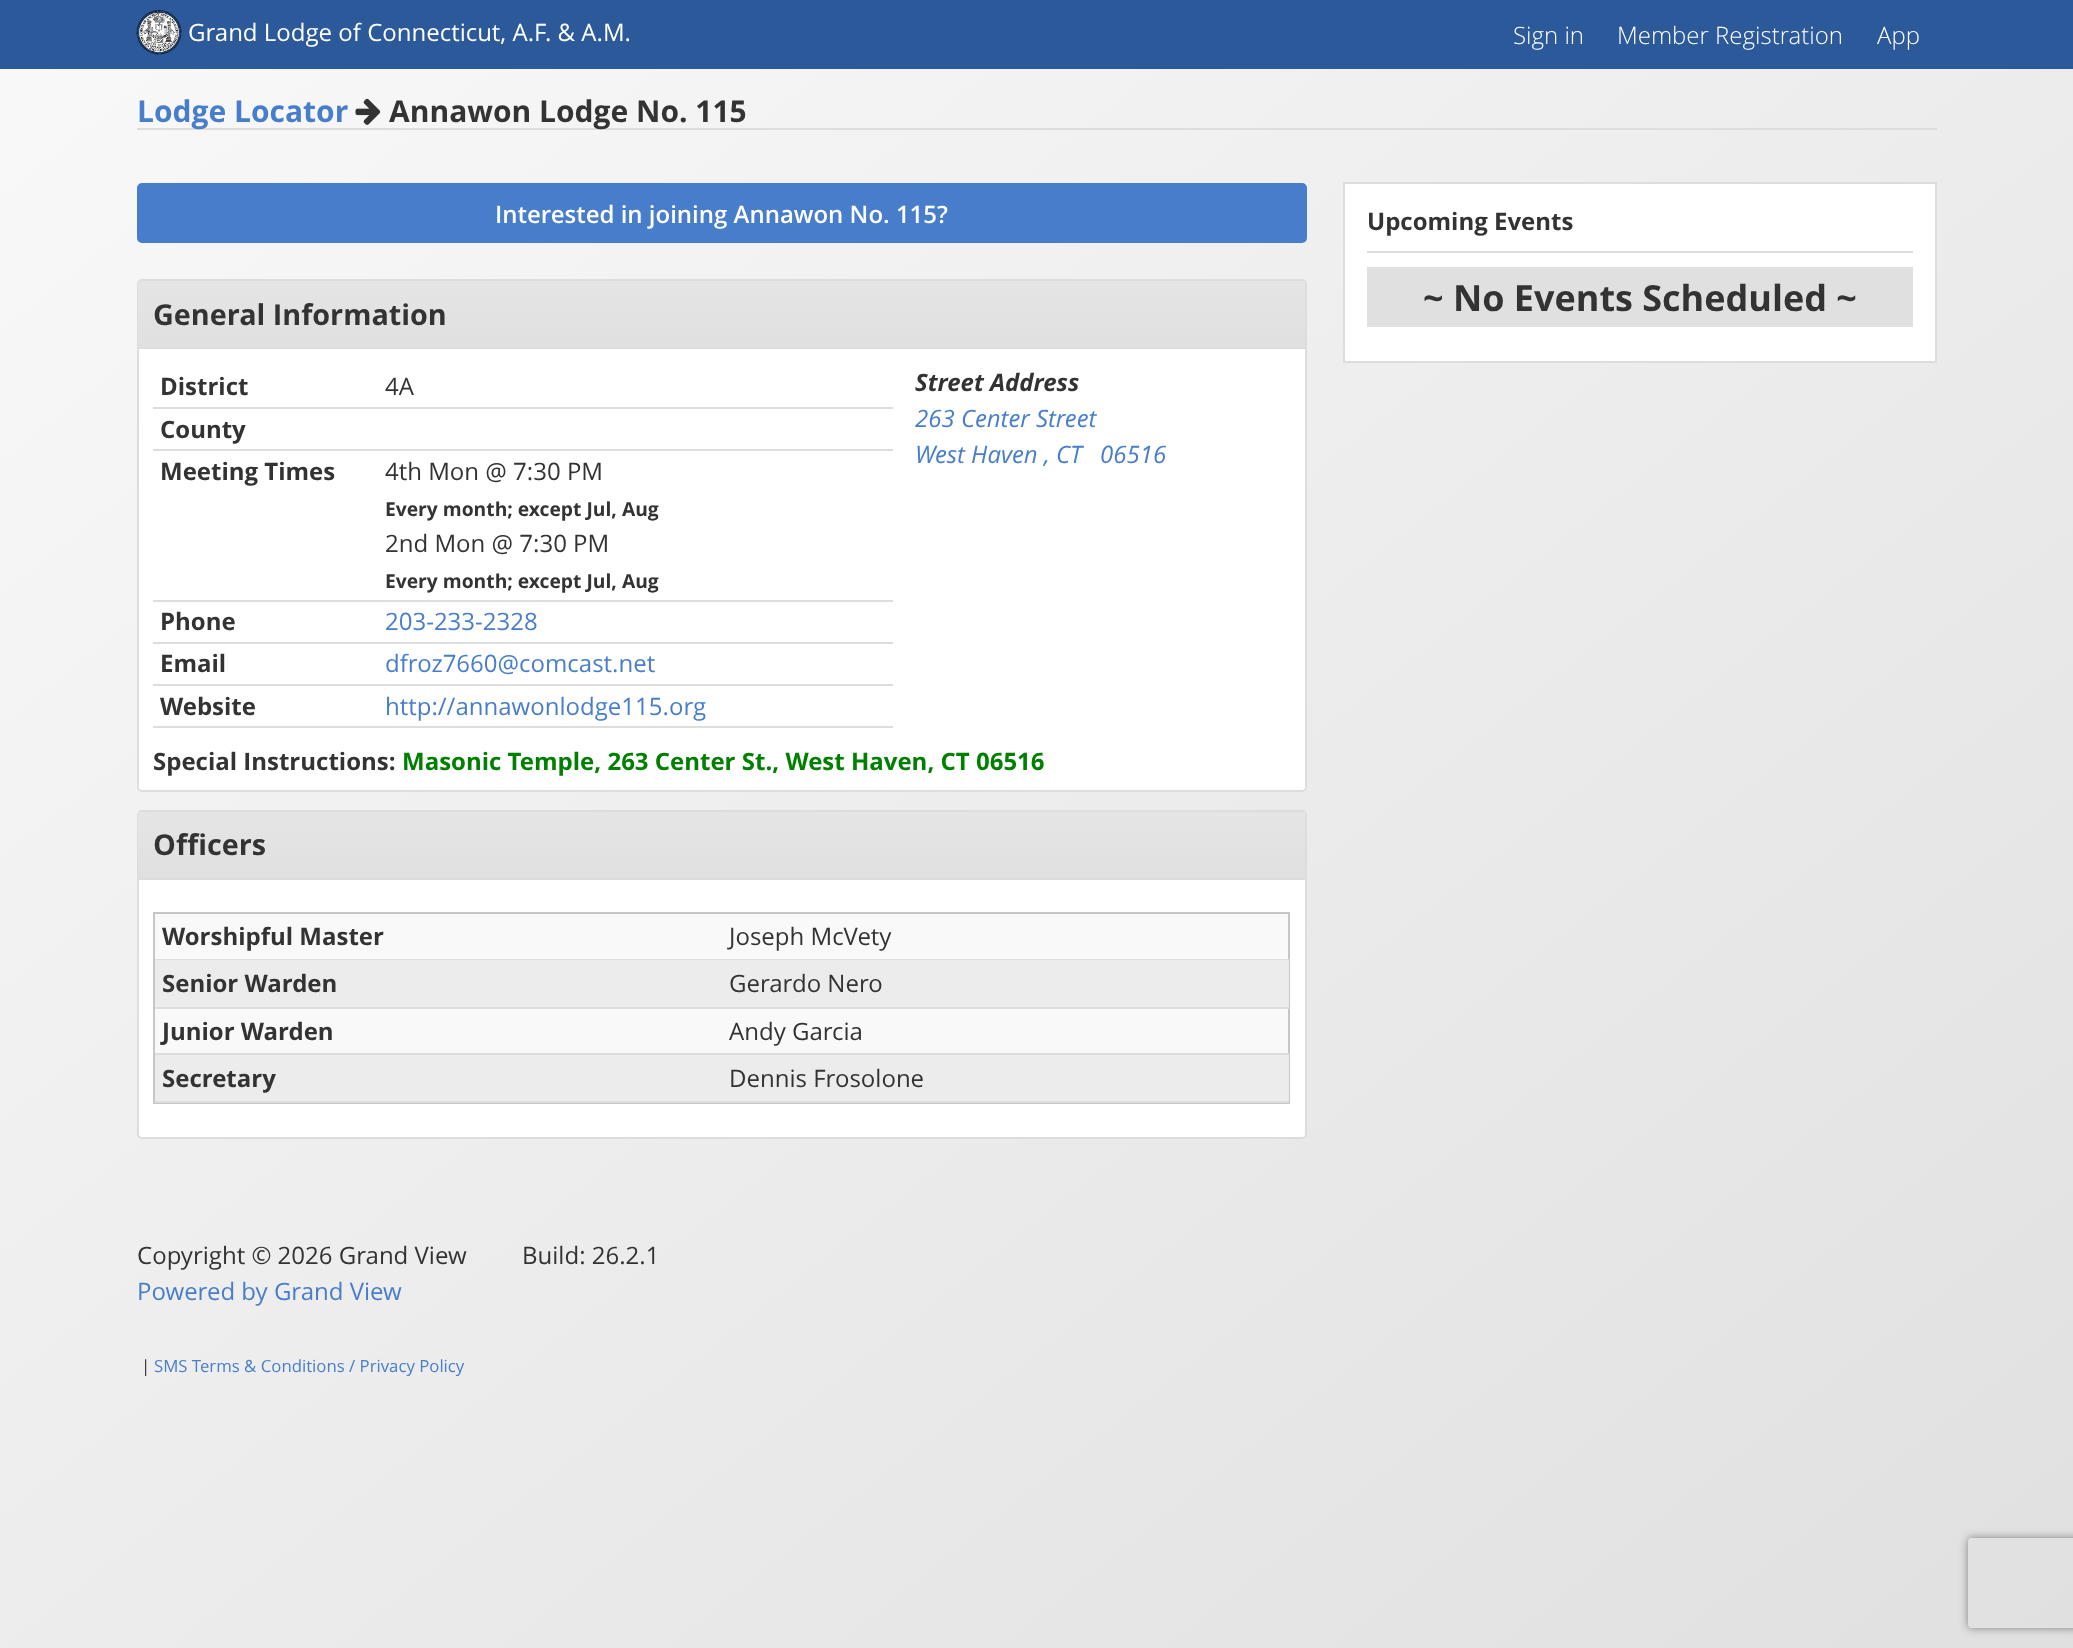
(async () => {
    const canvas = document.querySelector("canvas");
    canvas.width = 2073;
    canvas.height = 1648;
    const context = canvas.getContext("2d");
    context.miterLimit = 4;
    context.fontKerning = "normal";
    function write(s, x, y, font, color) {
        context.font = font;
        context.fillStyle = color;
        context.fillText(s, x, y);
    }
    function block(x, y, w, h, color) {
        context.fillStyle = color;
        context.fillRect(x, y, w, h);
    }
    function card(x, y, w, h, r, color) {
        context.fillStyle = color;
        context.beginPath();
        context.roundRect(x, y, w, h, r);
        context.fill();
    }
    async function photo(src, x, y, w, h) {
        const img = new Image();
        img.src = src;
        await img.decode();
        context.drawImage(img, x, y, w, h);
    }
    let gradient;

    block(0, 0, 2073, 1648, "rgb(255, 255, 255)");
    gradient = context.createLinearGradient(233, -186, 1840, 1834);
    gradient.addColorStop(0, "rgb(249, 249, 249)");
    gradient.addColorStop(1, "rgb(224, 224, 224)");
    context.fillStyle = gradient;
    context.fillRect(0, 69, 2073, 1579);
    block(0, 0, 2073, 69, "rgb(44, 89, 153)");
    await photo("media/1.png", 136, 10, 46, 45);
    write("Grand Lodge of Connecticut, A.F. & A.M.", 188, 41, "24px Open Sans", "rgb(255, 255, 255)");
    write("Sign in", 1513, 44, "300 24px Open Sans", "rgb(255, 255, 255)");
    write("Member Registration", 1617, 44, "300 24px Open Sans", "rgb(255, 255, 255)");
    write("App", 1877, 44, "300 24px Open Sans", "rgb(255, 255, 255)");
    block(137, 128, 1800, 2, "rgb(221, 221, 221)");
    write("Lodge Locator", 137, 122, "bold 30px Open Sans", "rgb(71, 125, 202)");
    await photo("media/2.png", 355, 98, 26, 27);
    write("Annawon Lodge No. 115", 389, 122, "bold 30px Open Sans", "rgb(51, 51, 51)");
    card(137, 183, 1170, 60, 5, "rgb(71, 125, 202)");
    write("Interested in joining Annawon No. 115?", 495, 223, "600 24px Open Sans", "rgb(255, 255, 255)");
    context.beginPath();
    context.roundRect(138, 280, 1168, 511, 4);
    context.fill();
    context.strokeStyle = "rgb(221, 221, 221)";
    context.lineWidth = 2;
    context.stroke();
    gradient = context.createLinearGradient(722, 280, 722, 347);
    gradient.addColorStop(0, "rgb(229, 229, 229)");
    gradient.addColorStop(1, "rgb(224, 224, 224)");
    context.fillStyle = gradient;
    context.fillRect(138, 281, 1167, 66);
    block(138, 347, 1167, 2, "rgb(221, 221, 221)");
    write("General Information", 153, 325, "bold 28.75px Open Sans", "rgb(51, 51, 51)");
    write("District", 160, 395, "bold 24px Open Sans", "rgb(51, 51, 51)");
    block(153, 407, 740, 2, "rgb(221, 221, 221)");
    write("4A", 385, 395, "24px Open Sans", "rgb(51, 51, 51)");
    write("County", 160, 438, "bold 24px Open Sans", "rgb(51, 51, 51)");
    block(153, 449, 740, 2, "rgb(221, 221, 221)");
    write("Meeting Times", 160, 480, "bold 24px Open Sans", "rgb(51, 51, 51)");
    block(153, 600, 740, 2, "rgb(221, 221, 221)");
    write("4th Mon @ 7:30 PM", 385, 480, "24px Open Sans", "rgb(51, 51, 51)");
    write("Every month; except Jul, Aug", 385, 516, "bold 19.25px Open Sans", "rgb(51, 51, 51)");
    write("2nd Mon @ 7:30 PM", 385, 552, "24px Open Sans", "rgb(51, 51, 51)");
    write("Every month; except Jul, Aug", 385, 588, "bold 19.25px Open Sans", "rgb(51, 51, 51)");
    write("Phone", 160, 630, "bold 24px Open Sans", "rgb(51, 51, 51)");
    block(153, 642, 740, 2, "rgb(221, 221, 221)");
    write("203-233-2328", 385, 630, "24px Open Sans", "rgb(71, 125, 202)");
    write("Email", 160, 672, "bold 24px Open Sans", "rgb(51, 51, 51)");
    block(153, 684, 740, 2, "rgb(221, 221, 221)");
    write("dfroz7660@comcast.net", 385, 672, "24px Open Sans", "rgb(71, 125, 202)");
    write("Website", 160, 715, "bold 24px Open Sans", "rgb(51, 51, 51)");
    block(153, 726, 740, 2, "rgb(221, 221, 221)");
    write("http://annawonlodge115.org", 385, 715, "24px Open Sans", "rgb(71, 125, 202)");
    write("Street Address", 915, 391, "italic bold 24px Open Sans", "rgb(51, 51, 51)");
    write("263 Center Street", 915, 427, "italic 24px Open Sans", "rgb(71, 125, 202)");
    write("West Haven , CT", 915, 463, "italic 24px Open Sans", "rgb(71, 125, 202)");
    write("06516", 1100, 463, "italic 24px Open Sans", "rgb(71, 125, 202)");
    write("Special Instructions:", 153, 770, "bold 24px Open Sans", "rgb(51, 51, 51)");
    write("Masonic Temple, 263 Center St., West Haven, CT 06516", 402, 770, "bold 24px Open Sans", "rgb(0, 128, 0)");
    context.fillStyle = "rgb(255, 255, 255)";
    context.beginPath();
    context.roundRect(138, 811, 1168, 327, 4);
    context.fill();
    context.stroke();
    gradient = context.createLinearGradient(722, 812, 722, 878);
    gradient.addColorStop(0, "rgb(229, 229, 229)");
    gradient.addColorStop(1, "rgb(224, 224, 224)");
    context.fillStyle = gradient;
    context.fillRect(138, 812, 1167, 66);
    block(138, 878, 1167, 2, "rgb(221, 221, 221)");
    write("Officers", 153, 855, "bold 28.75px Open Sans", "rgb(51, 51, 51)");
    block(155, 914, 1133, 139, "rgb(249, 249, 249)");
    context.strokeStyle = "rgb(198, 198, 198)";
    context.strokeRect(154, 913, 1135, 190);
    block(155, 959, 1134, 1, "rgb(221, 221, 221)");
    write("Worshipful Master", 162, 945, "bold 24px Open Sans", "rgb(51, 51, 51)");
    write("Joseph McVety", 729, 945, "24px Open Sans", "rgb(51, 51, 51)");
    block(155, 960, 1134, 47, "rgb(236, 236, 236)");
    block(155, 1007, 1134, 2, "rgb(221, 221, 221)");
    write("Senior Warden", 162, 992, "bold 24px Open Sans", "rgb(51, 51, 51)");
    write("Gerardo Nero", 729, 992, "24px Open Sans", "rgb(51, 51, 51)");
    block(155, 1053, 1134, 2, "rgb(221, 221, 221)");
    write("Junior Warden", 162, 1040, "bold 24px Open Sans", "rgb(51, 51, 51)");
    write("Andy Garcia", 729, 1040, "24px Open Sans", "rgb(51, 51, 51)");
    block(155, 1055, 1134, 46, "rgb(236, 236, 236)");
    block(155, 1101, 1134, 2, "rgb(221, 221, 221)");
    write("Secretary", 162, 1087, "bold 24px Open Sans", "rgb(51, 51, 51)");
    write("Dennis Frosolone", 729, 1087, "24px Open Sans", "rgb(51, 51, 51)");
    context.fillStyle = "rgb(255, 255, 255)";
    context.beginPath();
    context.rect(1344, 183, 592, 179);
    context.fill();
    context.strokeStyle = "rgb(221, 221, 221)";
    context.stroke();
    block(1367, 251, 546, 2, "rgb(221, 221, 221)");
    write("Upcoming Events", 1367, 230, "bold 24px Open Sans", "rgb(51, 51, 51)");
    block(1367, 267, 546, 60, "rgb(224, 224, 224)");
    write("~ No Events Scheduled ~", 1423, 311, "bold 36px Open Sans", "rgb(51, 51, 51)");
    write("Copyright © 2026 Grand View", 137, 1264, "24px Open Sans", "rgb(51, 51, 51)");
    write("Build: 26.2.1", 522, 1264, "24px Open Sans", "rgb(51, 51, 51)");
    write("Powered by Grand View", 137, 1300, "24px Open Sans", "rgb(71, 125, 202)");
    write("|", 141, 1372, "16.75px Open Sans", "rgb(51, 51, 51)");
    write("SMS Terms & Conditions / Privacy Policy", 154, 1372, "16.75px Open Sans", "rgb(71, 125, 202)");
    context.save();
    context.beginPath();
    context.moveTo(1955, 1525);
    context.lineTo(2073, 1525);
    context.lineTo(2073, 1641);
    context.lineTo(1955, 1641);
    context.closePath();
    context.moveTo(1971, 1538);
    context.lineTo(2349, 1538);
    context.bezierCurveTo(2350.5, 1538, 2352, 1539.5, 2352, 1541);
    context.lineTo(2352, 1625);
    context.bezierCurveTo(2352, 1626.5, 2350.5, 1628, 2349, 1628);
    context.lineTo(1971, 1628);
    context.bezierCurveTo(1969.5, 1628, 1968, 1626.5, 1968, 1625);
    context.lineTo(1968, 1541);
    context.bezierCurveTo(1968, 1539.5, 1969.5, 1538, 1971, 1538);
    context.closePath();
    context.clip("evenodd");
    context.fillStyle = "rgb(128, 128, 128)";
    context.filter = "blur(4px)";
    context.beginPath();
    context.roundRect(1968, 1538, 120, 90, 3);
    context.fill();
    context.filter = "none";
    context.restore();
})();
